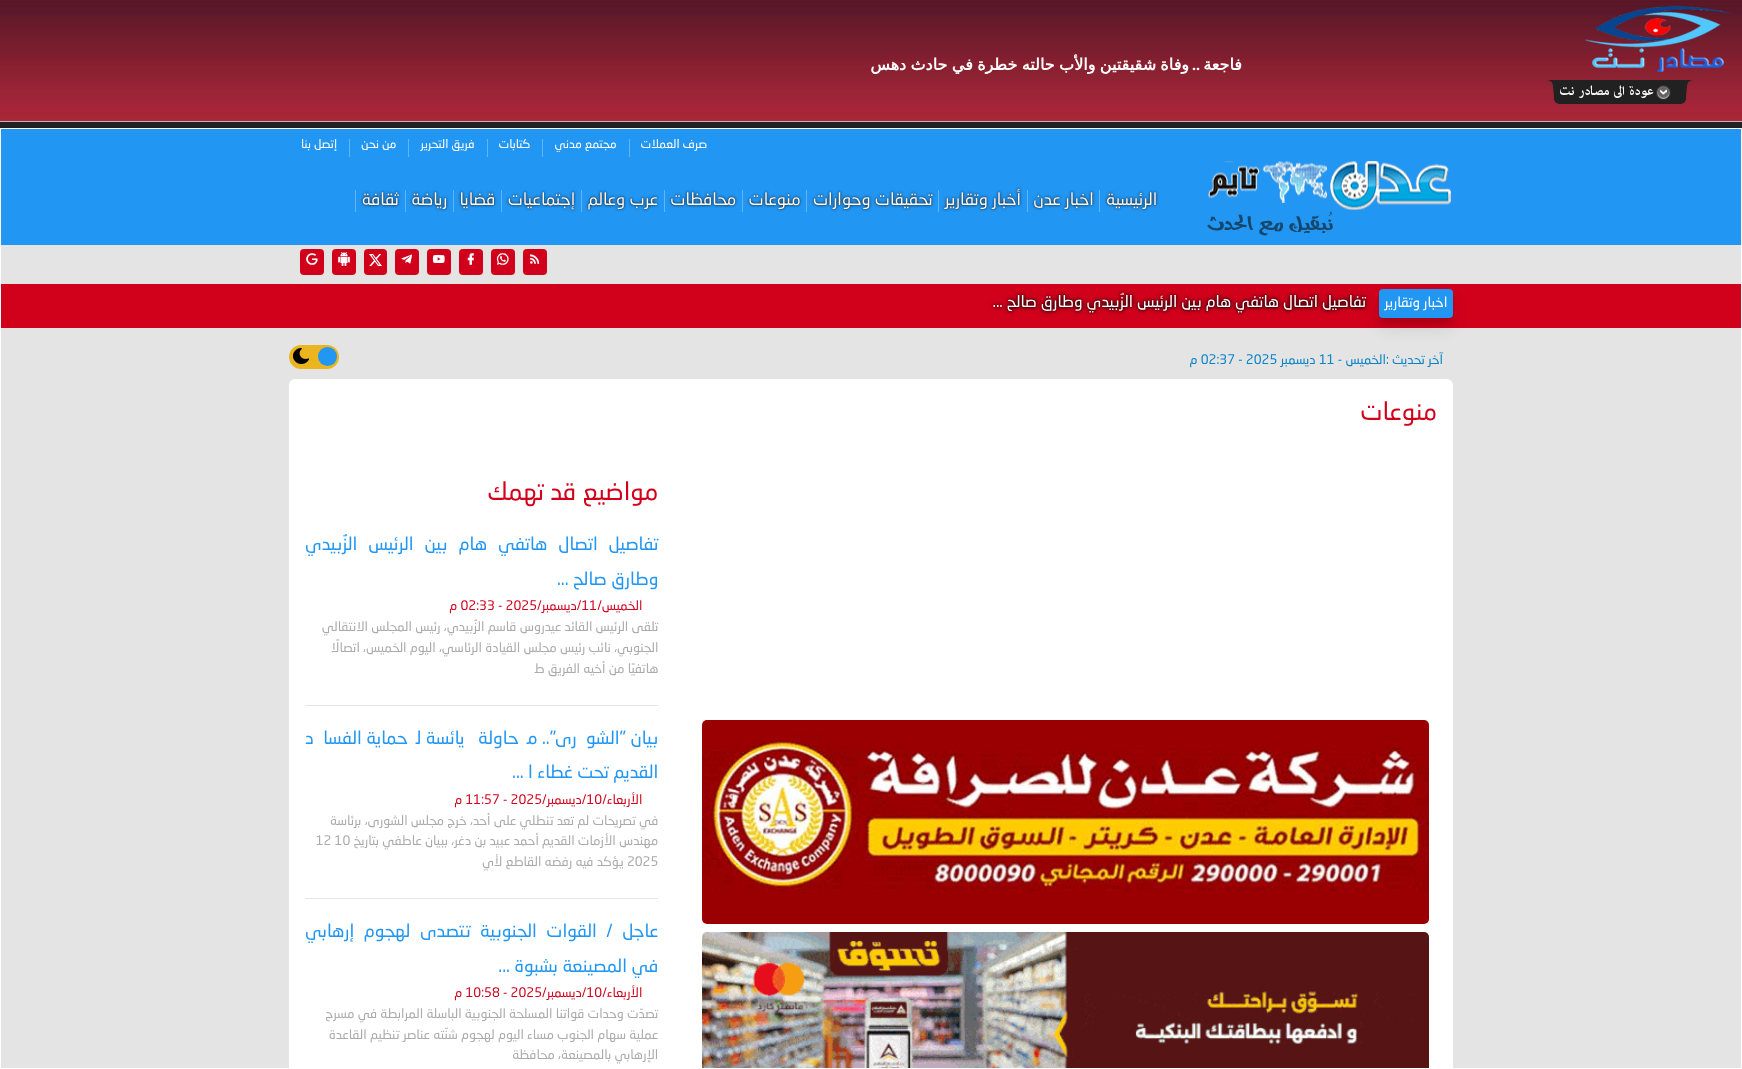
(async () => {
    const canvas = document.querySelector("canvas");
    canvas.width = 1742;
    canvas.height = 1069;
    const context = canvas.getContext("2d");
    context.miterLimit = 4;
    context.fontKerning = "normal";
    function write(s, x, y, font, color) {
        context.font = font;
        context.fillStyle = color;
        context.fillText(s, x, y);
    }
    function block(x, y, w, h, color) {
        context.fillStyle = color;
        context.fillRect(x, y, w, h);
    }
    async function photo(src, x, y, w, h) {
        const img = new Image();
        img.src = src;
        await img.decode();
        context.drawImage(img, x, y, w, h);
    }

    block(0, 0, 1742, 1069, "rgb(255, 255, 255)");
    block(0, 0, 1742, 1, "rgb(92, 23, 41)");
    await photo("media/1.png", 0, 1, 1742, 127);
    await photo("media/2.png", 1585, 5, 146, 67);
    context.direction = "rtl";
    write("فاجعة", 1242, 70, "bold 16px DejaVu Sans", "rgb(255, 255, 255)");
    write("..", 1200, 70, "bold 16px Liberation Serif", "rgb(255, 255, 255)");
    context.wordSpacing = "-0.75px";
    write("وفاة شقيقتين والأب حالته خطرة في حادث دهس", 1189, 70, "bold 16px DejaVu Sans", "rgb(255, 255, 255)");
    await photo("media/3.png", 1547, 80, 146, 24);
    await photo("media/4.png", 1, 129, 1740, 939);
})();
